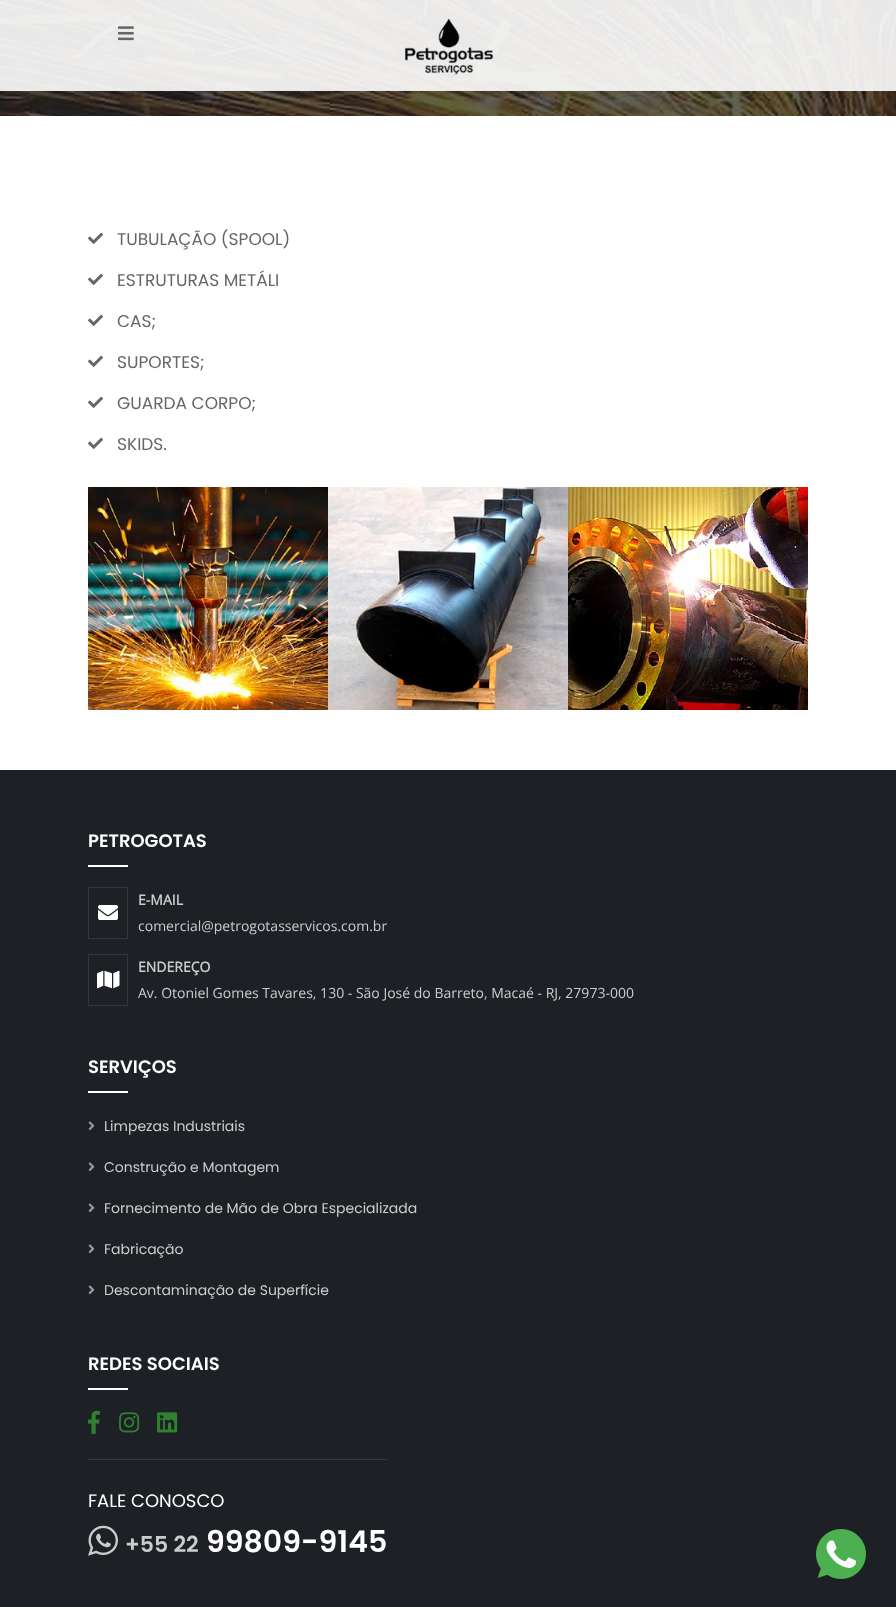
(async () => {
    const canvas = document.querySelector("canvas");
    canvas.width = 896;
    canvas.height = 1607;
    const context = canvas.getContext("2d");
    context.miterLimit = 4;
    context.fontKerning = "normal";
    function write(s, x, y, font, color) {
        context.font = font;
        context.fillStyle = color;
        context.fillText(s, x, y);
    }
    function block(x, y, w, h, color) {
        context.fillStyle = color;
        context.fillRect(x, y, w, h);
    }
    async function photo(src, x, y, w, h) {
        const img = new Image();
        img.src = src;
        await img.decode();
        context.drawImage(img, x, y, w, h);
    }

    block(0, 0, 896, 1607, "rgb(255, 255, 255)");
    await photo("media/1.png", 0, 0, 896, 116);
    block(0, 0, 896, 91, "rgba(255, 255, 255, 0.9)");
    block(88, 90, 720, 1, "rgb(231, 231, 231)");
    await photo("media/2.png", 118, 26, 16, 15);
    await photo("media/3.png", 404, 18, 90, 57);
    await photo("media/4.png", 88, 232, 15, 12);
    write("TUBULAÇÃO (SPOOL)", 117, 245, "17px Poppins", "rgb(102, 102, 102)");
    await photo("media/4.png", 88, 273, 15, 12);
    write("ESTRUTURAS METÁLI", 117, 286, "17px Poppins", "rgb(102, 102, 102)");
    await photo("media/4.png", 88, 314, 15, 12);
    write("CAS;", 117, 327, "17px Poppins", "rgb(102, 102, 102)");
    await photo("media/4.png", 88, 355, 15, 12);
    write("SUPORTES;", 117, 368, "17px Poppins", "rgb(102, 102, 102)");
    await photo("media/4.png", 88, 396, 15, 12);
    write("GUARDA CORPO;", 117, 409, "17px Poppins", "rgb(102, 102, 102)");
    await photo("media/4.png", 88, 437, 15, 12);
    write("SKIDS.", 117, 450, "17px Poppins", "rgb(102, 102, 102)");
    await photo("media/5.png", 88, 487, 720, 223);
    block(0, 770, 896, 837, "rgb(29, 32, 36)");
    write("PETROGOTAS", 88, 847, "600 18px Poppins", "rgb(255, 255, 255)");
    block(88, 865, 40, 2, "rgb(255, 255, 255)");
    context.strokeStyle = "rgb(52, 54, 58)";
    context.strokeRect(88.5, 887.5, 39, 51);
    await photo("media/6.png", 98, 905, 20, 15);
    write("E-MAIL", 138, 905, "bold 14px Open Sans", "rgb(204, 204, 204)");
    write("comercial@petrogotasservicos.com.br", 138, 931, "14px Open Sans", "rgb(204, 204, 204)");
    context.strokeRect(88.5, 954.5, 39, 51);
    await photo("media/7.png", 97, 970, 23, 19);
    write("ENDEREÇO", 138, 972, "bold 14px Open Sans", "rgb(204, 204, 204)");
    write("Av. Otoniel Gomes Tavares, 130 - São José do Barreto, Macaé - RJ, 27973-000", 138, 998, "14px Open Sans", "rgb(204, 204, 204)");
    write("SERVIÇOS", 88, 1073, "600 18px Poppins", "rgb(255, 255, 255)");
    block(88, 1091, 40, 2, "rgb(255, 255, 255)");
    await photo("media/8.png", 88, 1121, 7, 9);
    write("Limpezas Industriais", 104, 1131, "14px Poppins", "rgb(204, 204, 204)");
    await photo("media/8.png", 88, 1162, 7, 9);
    write("Construção e Montagem", 104, 1172, "14px Poppins", "rgb(204, 204, 204)");
    await photo("media/8.png", 88, 1203, 7, 9);
    write("Fornecimento de Mão de Obra Especializada", 104, 1213, "14px Poppins", "rgb(204, 204, 204)");
    await photo("media/8.png", 88, 1244, 7, 9);
    write("Fabricação", 104, 1254, "14px Poppins", "rgb(204, 204, 204)");
    await photo("media/8.png", 88, 1285, 7, 9);
    write("Descontaminação de Superfície", 104, 1295, "14px Poppins", "rgb(204, 204, 204)");
    write("REDES SOCIAIS", 88, 1370, "600 18px Poppins", "rgb(255, 255, 255)");
    block(88, 1388, 40, 2, "rgb(255, 255, 255)");
    await photo("media/9.png", 88, 1410, 12, 24);
    await photo("media/10.png", 119, 1412, 21, 21);
    await photo("media/11.png", 157, 1412, 21, 21);
    block(88, 1459, 299, 1, "rgb(52, 54, 58)");
    write("FALE CONOSCO", 88, 1507, "18px Poppins", "rgb(255, 255, 255)");
    await photo("media/12.png", 88, 1525, 30, 31);
    write("+55 22", 125, 1552, "600 22px Poppins", "rgb(204, 204, 204)");
    write("99809-9145", 206, 1552, "600 30px Poppins", "rgb(255, 255, 255)");
    await photo("media/13.png", 816, 1529, 50, 50);
})();
